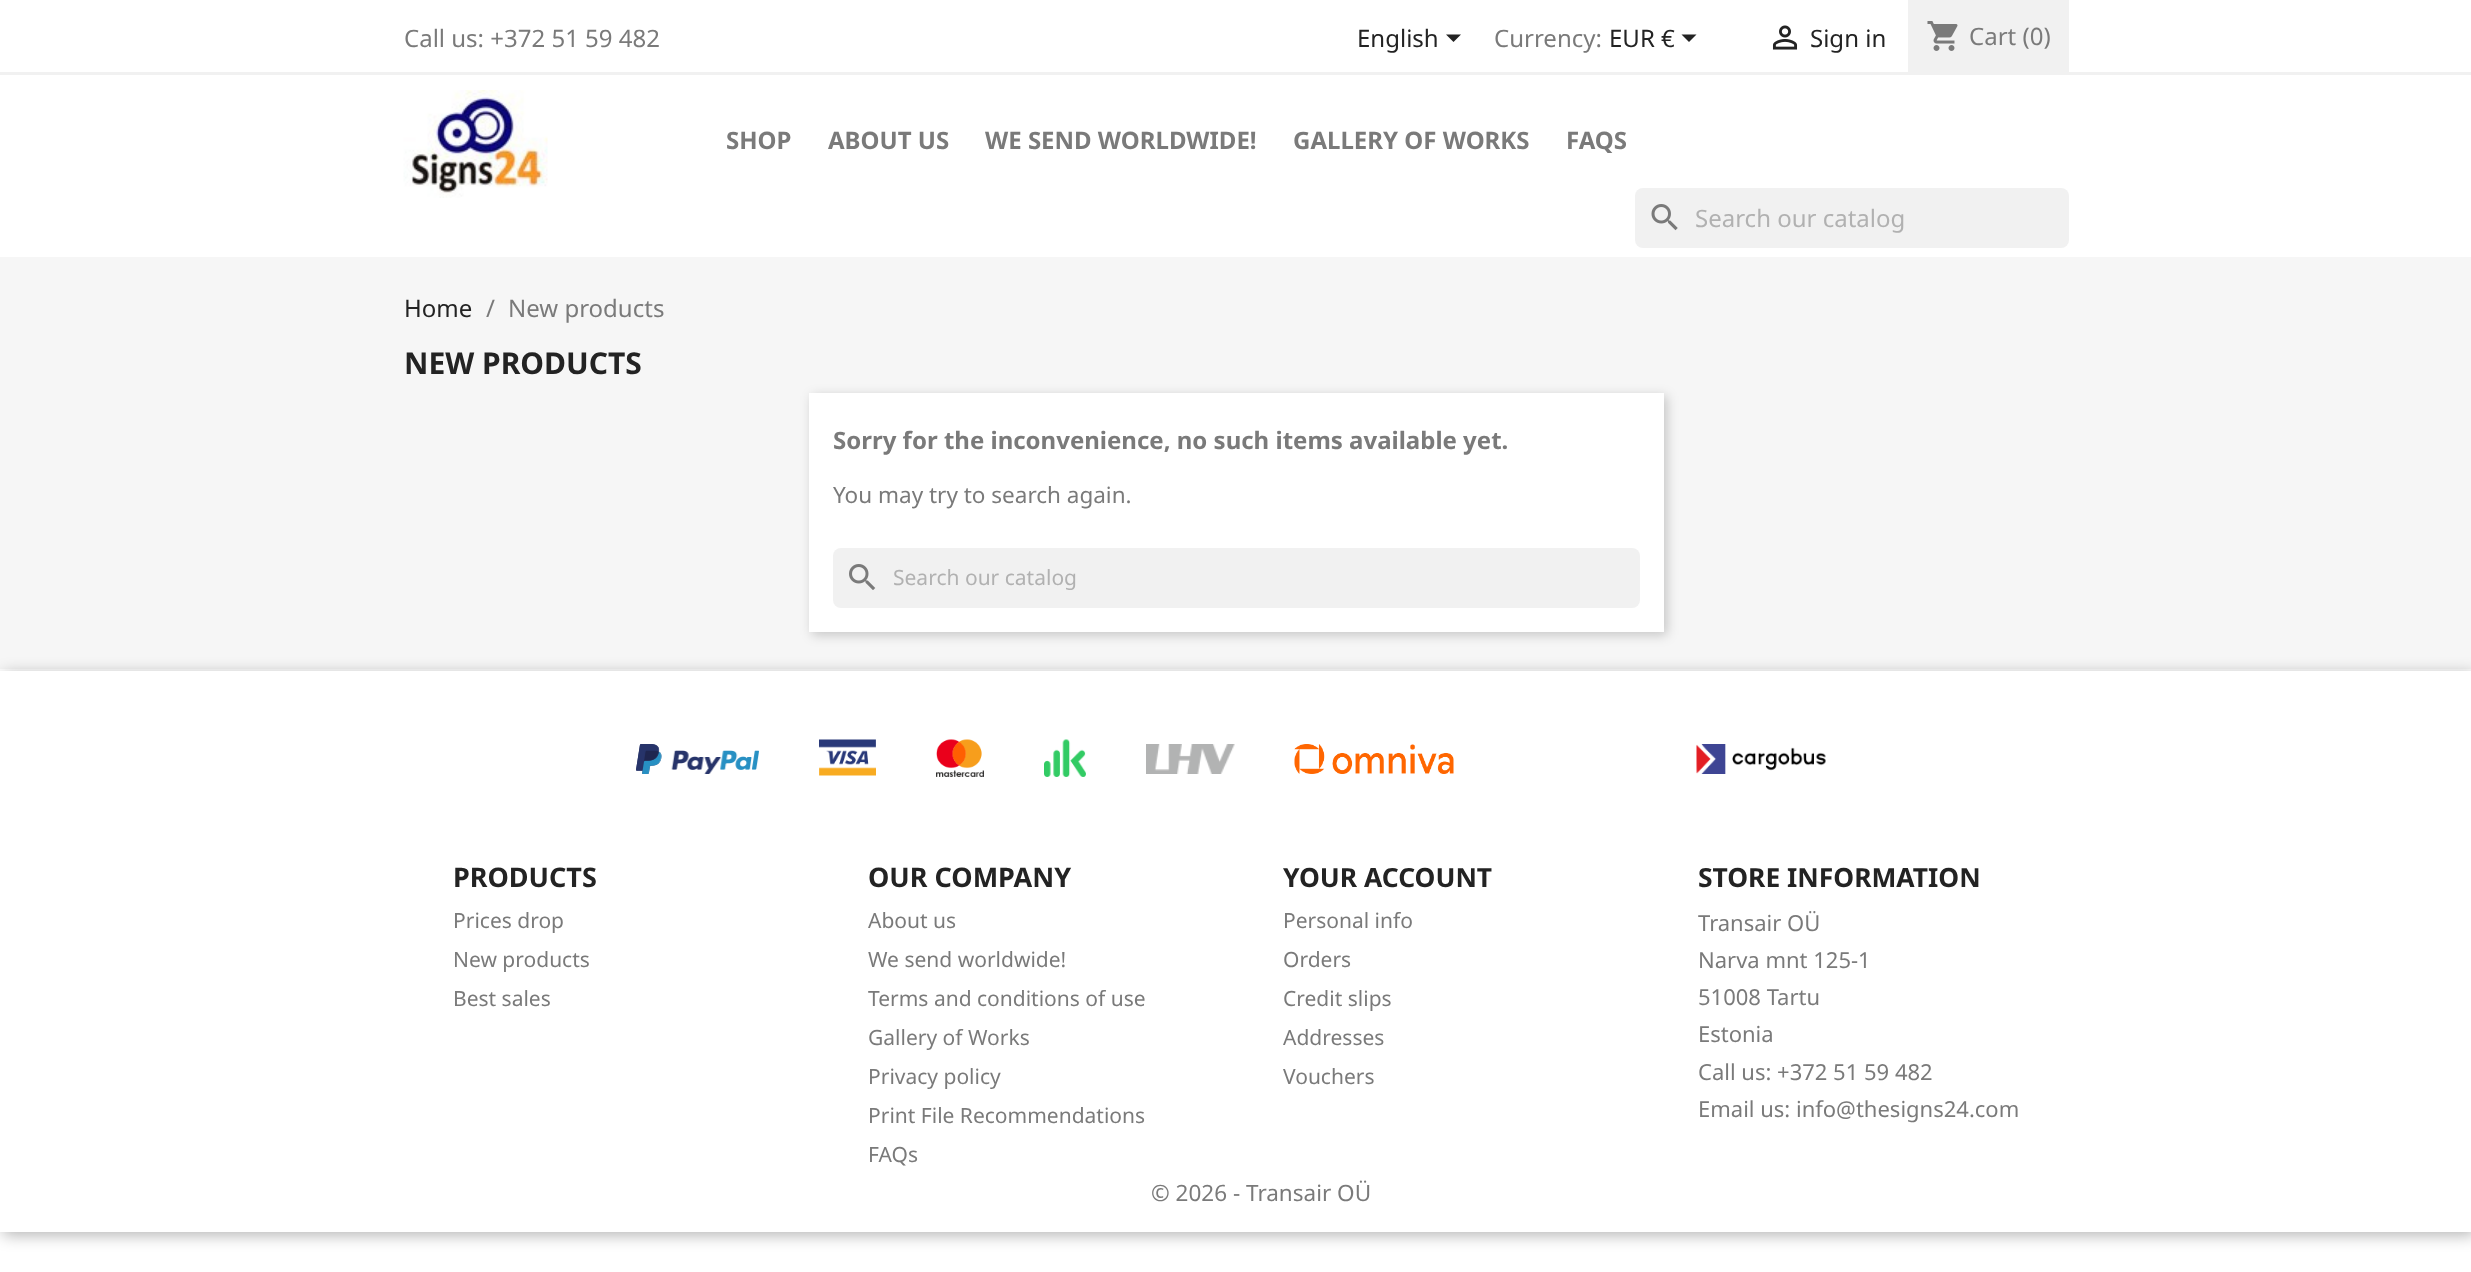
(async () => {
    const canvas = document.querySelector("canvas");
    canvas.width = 2471;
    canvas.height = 1272;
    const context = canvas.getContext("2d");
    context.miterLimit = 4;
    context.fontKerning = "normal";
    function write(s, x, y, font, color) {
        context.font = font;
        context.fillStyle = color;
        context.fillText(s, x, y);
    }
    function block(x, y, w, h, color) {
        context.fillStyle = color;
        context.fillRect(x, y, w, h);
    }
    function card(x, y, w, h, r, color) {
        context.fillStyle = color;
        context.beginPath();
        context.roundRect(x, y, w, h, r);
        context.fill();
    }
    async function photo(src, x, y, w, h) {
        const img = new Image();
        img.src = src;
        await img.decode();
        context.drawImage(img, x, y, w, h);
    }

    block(0, 0, 2471, 1272, "rgb(255, 255, 255)");
    block(0, 72, 2471, 3, "rgb(241, 241, 241)");
    write("Call us: +372 51 59 482", 404, 47, "24px Noto Sans", "rgb(122, 122, 122)");
    write("English", 1357, 47, "24px Noto Sans", "rgb(35, 35, 35)");
    context.beginPath();
    context.moveTo(1446, 34.5);
    context.lineTo(1461, 34.5);
    context.lineTo(1453.5, 42);
    context.closePath();
    context.fill();
    write("Currency:", 1494, 47, "24px Noto Sans", "rgb(122, 122, 122)");
    write("EUR €", 1609, 47, "24px Noto Sans", "rgb(35, 35, 35)");
    context.beginPath();
    context.moveTo(1681.5, 34.5);
    context.lineTo(1696.5, 34.5);
    context.lineTo(1689, 42);
    context.closePath();
    context.fill();
    await photo("media/1.png", 1772, 25, 26, 25);
    write("Sign in", 1810, 47, "24px Noto Sans", "rgb(35, 35, 35)");
    block(1908, 0, 161, 72, "rgb(241, 241, 241)");
    await photo("media/2.png", 1927, 21, 31, 30);
    write("Cart (0)", 1969, 45, "24px Noto Sans", "rgb(122, 122, 122)");
    await photo("media/3.png", 403, 90, 145, 108);
    write("SHOP", 726, 149, "bold 24px Noto Sans", "rgb(122, 122, 122)");
    write("ABOUT US", 828, 149, "bold 24px Noto Sans", "rgb(122, 122, 122)");
    write("WE SEND WORLDWIDE!", 985, 149, "bold 24px Noto Sans", "rgb(122, 122, 122)");
    write("GALLERY OF WORKS", 1293, 149, "bold 24px Noto Sans", "rgb(122, 122, 122)");
    write("FAQS", 1566, 149, "bold 24px Noto Sans", "rgb(122, 122, 122)");
    card(1635, 188, 434, 60, 8, "rgb(241, 241, 241)");
    await photo("media/4.png", 1651, 204, 27, 27);
    write("Search our catalog", 1695, 227, "24px Noto Sans", "rgb(177, 177, 177)");
    block(0, 257, 2471, 412, "rgb(246, 246, 246)");
    write("Home", 404, 317, "24px Noto Sans", "rgb(35, 35, 35)");
    write("/", 486, 317, "24px Noto Sans", "rgb(122, 122, 122)");
    write("New products", 508, 317, "24px Noto Sans", "rgb(122, 122, 122)");
    write("NEW PRODUCTS", 404, 374, "bold 30px Noto Sans", "rgb(35, 35, 35)");
    context.fillStyle = "rgba(0, 0, 0, 0.2)";
    context.filter = "blur(6px)";
    context.beginPath();
    context.rect(812, 396, 855, 239);
    context.fill();
    context.filter = "none";
    block(809, 393, 855, 239, "rgb(255, 255, 255)");
    write("Sorry for the inconvenience, no such items available yet.", 833, 449, "bold 24px Noto Sans", "rgb(122, 122, 122)");
    write("You may try to search again.", 833, 503, "22.5px Noto Sans", "rgb(122, 122, 122)");
    card(833, 548, 807, 60, 8, "rgb(241, 241, 241)");
    await photo("media/5.png", 849, 564, 27, 26);
    write("Search our catalog", 893, 585, "21px Noto Sans", "rgb(177, 177, 177)");
    context.save();
    context.beginPath();
    context.moveTo(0, 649);
    context.lineTo(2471, 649);
    context.lineTo(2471, 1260);
    context.lineTo(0, 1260);
    context.closePath();
    context.moveTo(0, 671);
    context.lineTo(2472, 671);
    context.lineTo(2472, 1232);
    context.lineTo(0, 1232);
    context.closePath();
    context.clip("evenodd");
    context.fillStyle = "rgba(0, 0, 0, 0.3)";
    context.filter = "blur(8px)";
    context.beginPath();
    context.rect(3, 674, 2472, 561);
    context.fill();
    context.filter = "none";
    context.restore();
    await photo("media/6.png", 636, 744, 123, 30);
    await photo("media/7.png", 819, 739, 57, 37);
    await photo("media/8.png", 936, 739, 48, 38);
    await photo("media/9.png", 1044, 739, 42, 38);
    await photo("media/10.png", 1146, 744, 89, 30);
    await photo("media/11.png", 1294, 744, 160, 30);
    await photo("media/12.png", 1696, 744, 130, 30);
    write("PRODUCTS", 453, 887, "bold 27px Noto Sans", "rgb(35, 35, 35)");
    write("Prices drop", 453, 928, "21px Noto Sans", "rgb(122, 122, 122)");
    write("New products", 453, 967, "21px Noto Sans", "rgb(122, 122, 122)");
    write("Best sales", 453, 1006, "21px Noto Sans", "rgb(122, 122, 122)");
    write("OUR COMPANY", 868, 887, "bold 27px Noto Sans", "rgb(35, 35, 35)");
    write("About us", 868, 928, "21px Noto Sans", "rgb(122, 122, 122)");
    write("We send worldwide!", 868, 967, "21px Noto Sans", "rgb(122, 122, 122)");
    write("Terms and conditions of use", 868, 1006, "21px Noto Sans", "rgb(122, 122, 122)");
    write("Gallery of Works", 868, 1045, "21px Noto Sans", "rgb(122, 122, 122)");
    write("Privacy policy", 868, 1084, "21px Noto Sans", "rgb(122, 122, 122)");
    write("Print File Recommendations", 868, 1123, "21px Noto Sans", "rgb(122, 122, 122)");
    write("FAQs", 868, 1162, "21px Noto Sans", "rgb(122, 122, 122)");
    write("YOUR ACCOUNT", 1283, 887, "bold 26.4px Noto Sans", "rgb(35, 35, 35)");
    write("Personal info", 1283, 928, "21px Noto Sans", "rgb(122, 122, 122)");
    write("Orders", 1283, 967, "21px Noto Sans", "rgb(122, 122, 122)");
    write("Credit slips", 1283, 1006, "21px Noto Sans", "rgb(122, 122, 122)");
    write("Addresses", 1283, 1045, "21px Noto Sans", "rgb(122, 122, 122)");
    write("Vouchers", 1283, 1084, "21px Noto Sans", "rgb(122, 122, 122)");
    write("STORE INFORMATION", 1698, 887, "bold 26.4px Noto Sans", "rgb(35, 35, 35)");
    write("Transair OÜ", 1698, 931, "22px Noto Sans", "rgb(122, 122, 122)");
    write("Narva mnt 125-1", 1698, 968, "22px Noto Sans", "rgb(122, 122, 122)");
    write("51008 Tartu", 1698, 1005, "22px Noto Sans", "rgb(122, 122, 122)");
    write("Estonia", 1698, 1042, "22px Noto Sans", "rgb(122, 122, 122)");
    write("Call us: +372 51 59 482", 1698, 1080, "22px Noto Sans", "rgb(122, 122, 122)");
    write("Email us: info@thesigns24.com", 1698, 1117, "22px Noto Sans", "rgb(122, 122, 122)");
    write("© 2026 - Transair OÜ", 1151, 1201, "22.5px Noto Sans", "rgb(122, 122, 122)");
})();
